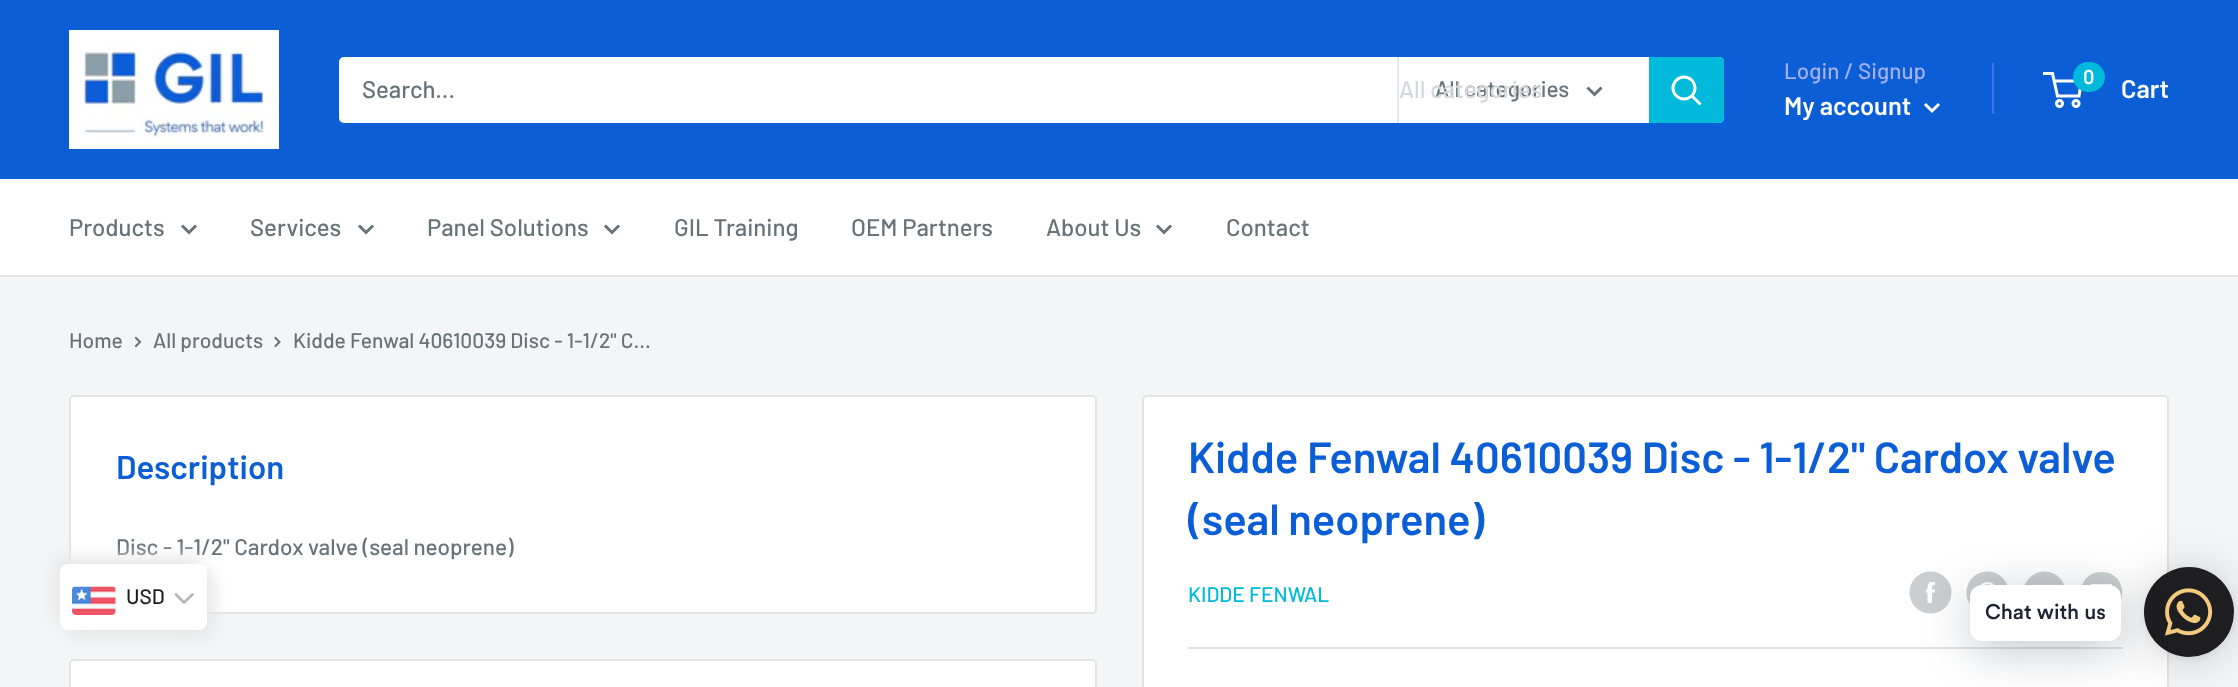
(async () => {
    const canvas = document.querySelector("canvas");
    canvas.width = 2238;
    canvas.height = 687;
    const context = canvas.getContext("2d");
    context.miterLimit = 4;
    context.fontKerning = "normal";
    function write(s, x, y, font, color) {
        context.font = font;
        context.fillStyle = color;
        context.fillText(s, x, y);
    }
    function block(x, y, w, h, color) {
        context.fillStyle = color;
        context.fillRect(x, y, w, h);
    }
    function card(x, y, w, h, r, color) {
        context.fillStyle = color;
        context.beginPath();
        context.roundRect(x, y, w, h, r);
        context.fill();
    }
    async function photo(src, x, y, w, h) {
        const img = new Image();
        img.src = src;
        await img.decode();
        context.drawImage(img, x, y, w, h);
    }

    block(0, 0, 2238, 687, "rgb(243, 245, 246)");
    block(0, 0, 2238, 179, "rgb(11, 94, 214)");
    await photo("media/1.png", 69, 30, 210, 119);
    card(339, 57, 1385, 66, 5, "rgb(255, 255, 255)");
    write("Search...", 362, 98, "500 24px Barlow", "rgb(103, 114, 121)");
    block(1397, 57, 2, 66, "rgb(227, 231, 250)");
    write("All categories", 1435, 97, "500 22.5px Barlow", "rgb(103, 114, 121)");
    write("All categories", 1399, 98, "500 24px Barlow", "rgb(213, 216, 218)");
    context.beginPath();
    context.moveTo(1600.5, 88.5);
    context.lineTo(1594.5, 94.5);
    context.lineTo(1588.5, 88.5);
    context.strokeStyle = "rgb(103, 114, 121)";
    context.lineWidth = 3;
    context.lineCap = "square";
    context.stroke();
    context.fillStyle = "rgb(0, 186, 219)";
    context.beginPath();
    context.roundRect(1649, 57, 75, 66, [0, 5, 5, 0]);
    context.fill();
    context.beginPath();
    context.moveTo(1699.5, 103.5);
    context.lineTo(1692, 96);
    context.strokeStyle = "rgb(255, 255, 255)";
    context.stroke();
    context.beginPath();
    context.arc(1684, 88, 11, 0, Math.PI * 2);
    context.stroke();
    write("Login / Signup", 1784, 79, "500 22.5px Barlow", "rgb(163, 175, 239)");
    block(1992, 63, 2, 51, "rgb(57, 118, 222)");
    write("My account", 1784, 115, "600 25.5px Barlow", "rgb(255, 255, 255)");
    context.beginPath();
    context.moveTo(1938, 105);
    context.lineTo(1932, 111);
    context.lineTo(1926, 105);
    context.stroke();
    context.beginPath();
    context.arc(2059.5, 103.5, 3, 0, Math.PI * 2);
    context.stroke();
    context.beginPath();
    context.arc(2076, 103.5, 3, 0, Math.PI * 2);
    context.stroke();
    context.beginPath();
    context.moveTo(2054, 81);
    context.lineTo(2081.5, 81);
    context.lineTo(2079, 96);
    context.lineTo(2057.5, 96);
    context.lineTo(2052.5, 73.5);
    context.lineTo(2043, 73.5);
    context.lineCap = "butt";
    context.stroke();
    card(2073, 62, 32, 30, 15, "rgb(0, 186, 219)");
    write("0", 2083, 84, "600 20px Barlow", "rgb(255, 255, 255)");
    write("Cart", 2121, 98, "600 25.5px Barlow", "rgb(255, 255, 255)");
    block(0, 179, 2238, 96, "rgb(255, 255, 255)");
    block(0, 275, 2238, 2, "rgb(225, 227, 228)");
    write("Products", 69, 236, "500 24px Barlow", "rgb(103, 114, 121)");
    context.beginPath();
    context.moveTo(195, 226.5);
    context.lineTo(189, 232.5);
    context.lineTo(183, 226.5);
    context.strokeStyle = "rgb(103, 114, 121)";
    context.lineCap = "square";
    context.stroke();
    write("Services", 250, 236, "500 24px Barlow", "rgb(103, 114, 121)");
    context.beginPath();
    context.moveTo(372, 226.5);
    context.lineTo(366, 232.5);
    context.lineTo(360, 226.5);
    context.stroke();
    write("Panel Solutions", 427, 236, "500 24px Barlow", "rgb(103, 114, 121)");
    context.beginPath();
    context.moveTo(618, 226.5);
    context.lineTo(612, 232.5);
    context.lineTo(606, 226.5);
    context.stroke();
    write("GIL Training", 674, 236, "500 24px Barlow", "rgb(103, 114, 121)");
    write("OEM Partners", 851, 236, "500 24px Barlow", "rgb(103, 114, 121)");
    write("About Us", 1046, 236, "500 24px Barlow", "rgb(103, 114, 121)");
    context.beginPath();
    context.moveTo(1170, 226.5);
    context.lineTo(1164, 232.5);
    context.lineTo(1158, 226.5);
    context.stroke();
    write("Contact", 1226, 236, "500 24px Barlow", "rgb(103, 114, 121)");
    write("Home", 69, 348, "500 21px Barlow", "rgb(103, 114, 121)");
    context.beginPath();
    context.moveTo(136, 338);
    context.lineTo(140, 342);
    context.lineTo(136, 346);
    context.lineWidth = 2;
    context.stroke();
    write("All products", 153, 348, "500 21px Barlow", "rgb(103, 114, 121)");
    context.beginPath();
    context.moveTo(275.5, 338);
    context.lineTo(279.5, 342);
    context.lineTo(275.5, 346);
    context.stroke();
    write("Kidde Fenwal 40610039 Disc - 1-1/2\" C...", 293, 348, "500 21px Barlow", "rgb(103, 114, 121)");
    context.fillStyle = "rgb(255, 255, 255)";
    context.beginPath();
    context.roundRect(70, 396, 1026, 217, 4);
    context.fill();
    context.strokeStyle = "rgb(225, 227, 228)";
    context.stroke();
    write("Description", 116, 479, "600 33px Barlow", "rgb(11, 94, 214)");
    write("Disc - 1-1/2\" Cardox valve (seal neoprene)", 116, 555, "500 22.5px Barlow", "rgb(103, 114, 121)");
    context.fillStyle = "rgb(255, 255, 255)";
    context.beginPath();
    context.roundRect(1143, 396, 1025, 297, 4);
    context.fill();
    context.stroke();
    write("Kidde Fenwal 40610039 Disc - 1-1/2\" Cardox valve", 1188, 473, "600 43.5px Barlow", "rgb(11, 94, 214)");
    write("(seal neoprene)", 1188, 535, "600 43.5px Barlow", "rgb(11, 94, 214)");
    write("KIDDE FENWAL", 1188, 602, "500 21px Barlow", "rgb(0, 186, 219)");
    await photo("media/2.png", 1909, 571, 43, 43);
    await photo("media/3.png", 1966, 571, 41, 33);
    await photo("media/4.png", 2025, 571, 39, 14);
    context.fillStyle = "rgb(202, 206, 208)";
    context.beginPath();
    context.moveTo(2102, 614);
    context.bezierCurveTo(2074, 614, 2074, 571, 2102, 572);
    context.bezierCurveTo(2129, 572, 2129, 614, 2102, 614);
    context.closePath();
    context.moveTo(2097, 586);
    context.lineTo(2106, 586);
    context.lineTo(2102, 591);
    context.closePath();
    context.moveTo(2109, 588);
    context.lineTo(2109, 598);
    context.lineTo(2094, 598);
    context.lineTo(2094, 588);
    context.lineTo(2102, 594);
    context.closePath();
    context.moveTo(2112, 584);
    context.lineTo(2091, 584);
    context.lineTo(2091, 602);
    context.lineTo(2112, 602);
    context.closePath();
    context.fill();
    block(1188, 647, 935, 2, "rgb(225, 227, 228)");
    context.fillStyle = "rgb(255, 255, 255)";
    context.beginPath();
    context.roundRect(70, 660, 1026, 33, 4);
    context.fill();
    context.stroke();
    context.fillStyle = "rgb(232, 232, 232)";
    context.filter = "blur(7.5px)";
    context.beginPath();
    context.roundRect(53, 557, 147, 66, 8);
    context.fill();
    context.filter = "none";
    context.filter = "blur(7.5px)";
    context.beginPath();
    context.roundRect(68, 572, 147, 66, 8);
    context.fill();
    context.filter = "none";
    card(60, 564, 147, 66, 8, "rgb(255, 255, 255)");
    await photo("media/5.png", 72, 586, 44, 29);
    write("USD", 126, 604, "500 21px Barlow", "rgb(30, 30, 30)");
    context.beginPath();
    context.moveTo(176, 594.5);
    context.lineTo(184, 602.5);
    context.lineTo(192.5, 594.5);
    context.strokeStyle = "rgb(183, 183, 183)";
    context.lineWidth = 2.7;
    context.lineCap = "round";
    context.lineJoin = "round";
    context.stroke();
    context.fillStyle = "rgba(0, 0, 0, 0.16)";
    context.filter = "blur(24px)";
    context.beginPath();
    context.roundRect(2144, 570, 90, 90, 45);
    context.fill();
    context.filter = "none";
    context.fillStyle = "rgba(0, 0, 0, 0.06)";
    context.filter = "blur(4.5px)";
    context.beginPath();
    context.roundRect(2144, 569, 90, 90, 45);
    context.fill();
    context.filter = "none";
    context.fillStyle = "rgb(30, 30, 32)";
    context.beginPath();
    context.arc(2189, 612, 45, 0, Math.PI * 2);
    context.fill();
    context.fillStyle = "rgba(0, 18, 46, 0.24)";
    context.filter = "blur(24px)";
    context.beginPath();
    context.roundRect(1970, 594, 151, 56, 12);
    context.fill();
    context.filter = "none";
    card(1970, 585, 151, 56, 12, "rgb(255, 255, 255)");
    write("Chat with us", 1985, 619, "500 21px Circular", "rgb(30, 36, 51)");
    await photo("media/6.png", 2164, 588, 49, 48);
})();
